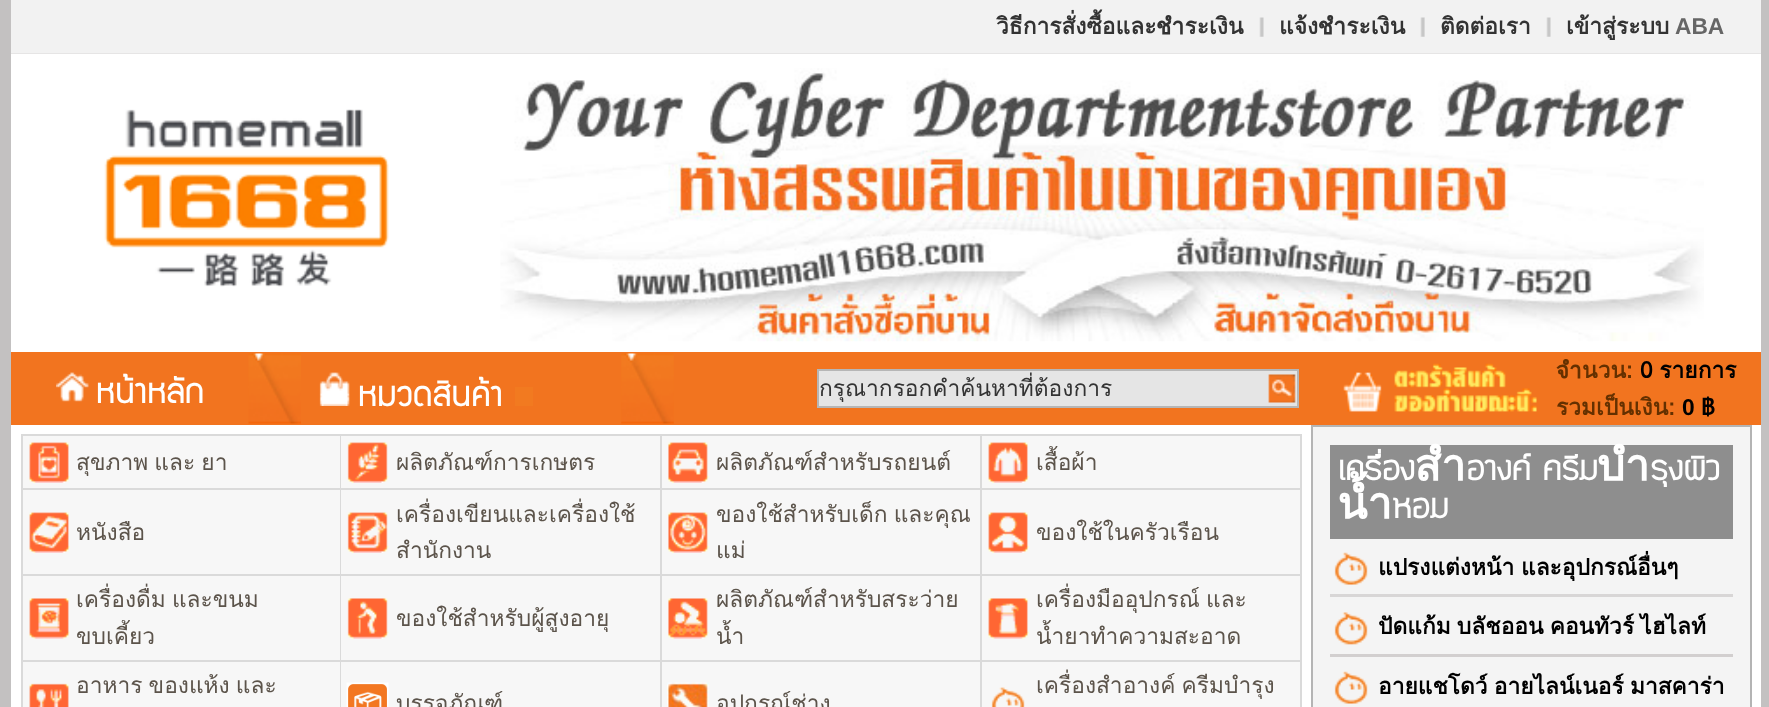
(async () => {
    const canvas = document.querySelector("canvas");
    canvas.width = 1769;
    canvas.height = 707;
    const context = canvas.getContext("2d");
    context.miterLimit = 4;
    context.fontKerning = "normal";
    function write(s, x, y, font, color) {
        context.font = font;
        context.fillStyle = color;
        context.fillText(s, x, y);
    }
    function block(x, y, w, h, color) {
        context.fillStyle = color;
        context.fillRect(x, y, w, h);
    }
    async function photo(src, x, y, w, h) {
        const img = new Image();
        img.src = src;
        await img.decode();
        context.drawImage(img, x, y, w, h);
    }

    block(0, 0, 1769, 707, "rgb(195, 193, 193)");
    block(11, 0, 1750, 53, "rgb(242, 242, 242)");
    block(11, 53, 1750, 1, "rgb(230, 229, 229)");
    write("วิธีการสั่งซื้อและชำระเงิน", 996, 34, "bold 22.75px Loma", "rgb(51, 51, 51)");
    await photo("media/1.png", 1259, 17, 5, 20);
    write("แจ้งชำระเงิน", 1279, 34, "bold 22.75px Loma", "rgb(51, 51, 51)");
    await photo("media/2.png", 1420, 17, 5, 20);
    write("ติดต่อเรา", 1440, 34, "bold 22.75px Loma", "rgb(51, 51, 51)");
    await photo("media/1.png", 1546, 17, 5, 20);
    write("เข้าสู่ระบบ", 1566, 34, "bold 22.75px Loma", "rgb(51, 51, 51)");
    write("ABA", 1675, 34, "bold 22.75px Liberation Sans", "rgb(102, 102, 102)");
    block(11, 54, 1750, 298, "rgb(255, 255, 255)");
    await photo("media/3.png", 104, 109, 285, 178);
    await photo("media/4.png", 500, 68, 1204, 274);
    block(11, 352, 1750, 73, "rgb(242, 116, 31)");
    await photo("media/5.png", 56, 372, 33, 30);
    write("หน้าหลัก", 96, 403, "38.5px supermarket", "rgb(255, 255, 255)");
    await photo("media/6.png", 248, 353, 53, 71);
    await photo("media/7.png", 319, 372, 31, 34);
    write("หมวดสินค้า", 358, 406, "38.5px supermarket", "rgb(255, 255, 255)");
    block(515, 387, 18, 19, "rgb(242, 122, 32)");
    await photo("media/8.png", 621, 353, 53, 71);
    context.fillStyle = "rgb(229, 229, 229)";
    context.beginPath();
    context.rect(818, 370, 480, 37);
    context.fill();
    context.strokeStyle = "rgb(182, 182, 182)";
    context.lineWidth = 2;
    context.stroke();
    write("กรุณากรอกคำค้นหาที่ต้องการ", 819, 396, "22.75px Loma", "rgb(51, 51, 51)");
    await photo("media/9.png", 1268, 374, 28, 29);
    await photo("media/10.png", 1343, 363, 194, 49);
    write("จำนวน:", 1556, 378, "bold 22.75px Loma", "rgb(100, 48, 0)");
    context.wordSpacing = "-1px";
    write("0 รายการ", 1640, 378, "bold 22.75px Loma", "rgb(0, 0, 0)");
    context.wordSpacing = "0px";
    write("รวมเป็นเงิน:", 1556, 415, "bold 22.75px Loma", "rgb(100, 48, 0)");
    write("0", 1682, 415, "bold 22.75px Liberation Sans", "rgb(0, 0, 0)");
    write("฿", 1701, 415, "bold 22.75px Loma", "rgb(0, 0, 0)");
    block(11, 425, 1750, 282, "rgb(255, 255, 255)");
    block(21, 434, 1281, 273, "rgb(218, 218, 218)");
    block(23, 436, 317, 52, "rgb(247, 247, 247)");
    await photo("media/11.png", 29, 442, 41, 41);
    context.wordSpacing = "-1.5px";
    write("สุขภาพ และ ยา", 76, 470, "22.75px Loma", "rgb(92, 84, 75)");
    block(341, 436, 319, 52, "rgb(247, 247, 247)");
    await photo("media/12.png", 347, 442, 42, 41);
    context.wordSpacing = "0px";
    write("ผลิตภัณฑ์การเกษตร", 396, 470, "22.75px Loma", "rgb(92, 84, 75)");
    block(662, 436, 318, 52, "rgb(247, 247, 247)");
    await photo("media/13.png", 668, 442, 41, 41);
    write("ผลิตภัณฑ์สำหรับรถยนต์", 716, 470, "22.75px Loma", "rgb(92, 84, 75)");
    block(982, 436, 318, 52, "rgb(247, 247, 247)");
    await photo("media/14.png", 988, 442, 41, 41);
    write("เสื้อผ้า", 1036, 470, "22.75px Loma", "rgb(92, 84, 75)");
    block(23, 490, 317, 84, "rgb(247, 247, 247)");
    await photo("media/15.png", 29, 512, 41, 41);
    write("หนังสือ", 76, 540, "22.75px Loma", "rgb(92, 84, 75)");
    block(341, 490, 319, 84, "rgb(247, 247, 247)");
    await photo("media/16.png", 347, 512, 42, 41);
    write("เครื่องเขียนและเครื่องใช้", 396, 522, "22.75px Loma", "rgb(92, 84, 75)");
    write("สำนักงาน", 396, 558, "22.75px Loma", "rgb(92, 84, 75)");
    block(662, 490, 318, 84, "rgb(247, 247, 247)");
    await photo("media/17.png", 668, 512, 41, 41);
    context.wordSpacing = "-1.5px";
    write("ของใช้สำหรับเด็ก และคุณ", 716, 522, "22.75px Loma", "rgb(92, 84, 75)");
    context.wordSpacing = "0px";
    write("แม่", 716, 558, "22.75px Loma", "rgb(92, 84, 75)");
    block(982, 490, 318, 84, "rgb(247, 247, 247)");
    await photo("media/18.png", 988, 512, 41, 41);
    write("ของใช้ในครัวเรือน", 1036, 540, "22.75px Loma", "rgb(92, 84, 75)");
    block(23, 576, 317, 84, "rgb(247, 247, 247)");
    await photo("media/19.png", 29, 598, 41, 41);
    context.wordSpacing = "-1.5px";
    write("เครื่องดื่ม และขนม", 76, 607, "22.75px Loma", "rgb(92, 84, 75)");
    context.wordSpacing = "0px";
    write("ขบเคี้ยว", 76, 644, "22.75px Loma", "rgb(92, 84, 75)");
    block(341, 576, 319, 84, "rgb(247, 247, 247)");
    await photo("media/20.png", 347, 598, 42, 41);
    write("ของใช้สำหรับผู้สูงอายุ", 396, 626, "22.75px Loma", "rgb(92, 84, 75)");
    block(662, 576, 318, 84, "rgb(247, 247, 247)");
    await photo("media/21.png", 668, 598, 41, 41);
    write("ผลิตภัณฑ์สำหรับสระว่าย", 716, 607, "22.75px Loma", "rgb(92, 84, 75)");
    write("น้ำ", 716, 644, "22.75px Loma", "rgb(92, 84, 75)");
    block(982, 576, 318, 84, "rgb(247, 247, 247)");
    await photo("media/22.png", 988, 598, 41, 41);
    context.wordSpacing = "-1.5px";
    write("เครื่องมืออุปกรณ์ และ", 1036, 607, "22.75px Loma", "rgb(92, 84, 75)");
    context.wordSpacing = "0px";
    write("น้ำยาทำความสะอาด", 1036, 644, "22.75px Loma", "rgb(92, 84, 75)");
    block(23, 662, 317, 45, "rgb(247, 247, 247)");
    await photo("media/23.png", 29, 683, 40, 24);
    context.wordSpacing = "-1.5px";
    write("อาหาร ของแห้ง และ", 76, 693, "22.75px Loma", "rgb(92, 84, 75)");
    block(982, 662, 318, 45, "rgb(247, 247, 247)");
    await photo("media/24.png", 991, 687, 34, 20);
    write("เครื่องสำอางค์ ครีมบำรุง", 1036, 693, "22.75px Loma", "rgb(92, 84, 75)");
    block(341, 662, 319, 45, "rgb(247, 247, 247)");
    await photo("media/25.png", 346, 682, 43, 25);
    context.wordSpacing = "0px";
    write("บรรจุภัณฑ์", 396, 711, "22.75px Loma", "rgb(92, 84, 75)");
    block(662, 662, 318, 45, "rgb(247, 247, 247)");
    await photo("media/26.png", 667, 682, 42, 25);
    write("อุปกรณ์ช่าง", 716, 711, "22.75px Loma", "rgb(92, 84, 75)");
    context.fillStyle = "rgb(244, 244, 244)";
    context.beginPath();
    context.rect(1312, 426, 439, 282);
    context.fill();
    context.strokeStyle = "rgb(180, 180, 180)";
    context.stroke();
    block(1330, 445, 403, 94, "rgb(142, 142, 142)");
    write("เครื่องสำอางค์ ครีมบำรุงผิว", 1338, 480, "bold 43.75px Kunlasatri", "rgb(255, 255, 255)");
    write("น้ำหอม", 1338, 518, "bold 43.75px Kunlasatri", "rgb(255, 255, 255)");
    block(1330, 594, 403, 3, "rgb(216, 214, 214)");
    await photo("media/27.png", 1334, 552, 34, 33);
    context.wordSpacing = "-1px";
    write("แปรงแต่งหน้า และอุปกรณ์อื่นๆ", 1378, 575, "bold 22.75px Loma", "rgb(0, 0, 0)");
    block(1330, 654, 403, 3, "rgb(210, 207, 207)");
    await photo("media/28.png", 1334, 612, 34, 33);
    context.wordSpacing = "-1.5px";
    write("ปัดแก้ม บลัชออน คอนทัวร์ ไฮไลท์", 1378, 634, "bold 22.75px Loma", "rgb(0, 0, 0)");
    await photo("media/27.png", 1334, 671, 34, 33);
    write("อายแชโดว์ อายไลน์เนอร์ มาสคาร่า", 1378, 694, "bold 22.75px Loma", "rgb(0, 0, 0)");
})();
